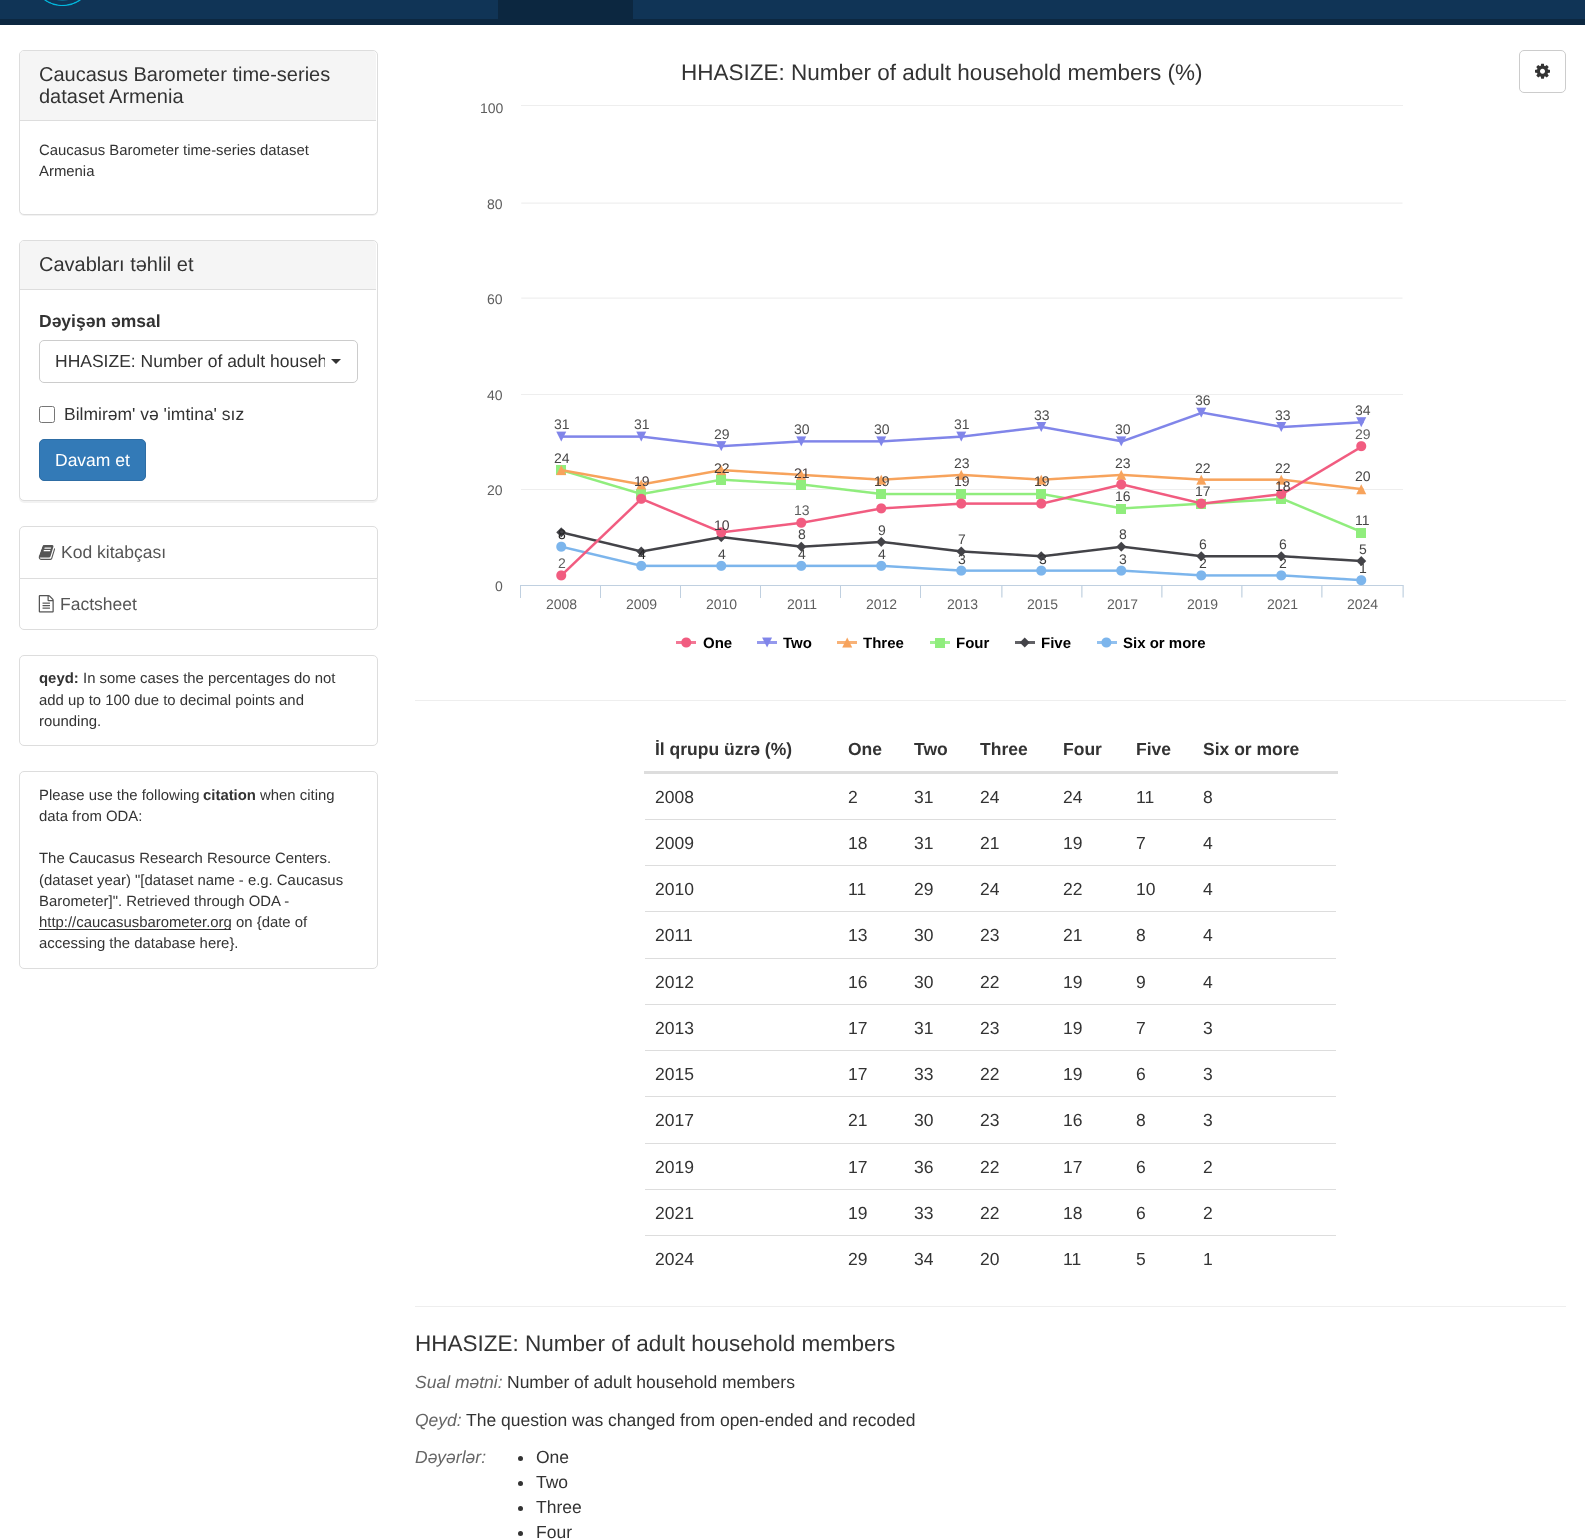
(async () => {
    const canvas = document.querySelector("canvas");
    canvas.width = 1585;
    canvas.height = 1539;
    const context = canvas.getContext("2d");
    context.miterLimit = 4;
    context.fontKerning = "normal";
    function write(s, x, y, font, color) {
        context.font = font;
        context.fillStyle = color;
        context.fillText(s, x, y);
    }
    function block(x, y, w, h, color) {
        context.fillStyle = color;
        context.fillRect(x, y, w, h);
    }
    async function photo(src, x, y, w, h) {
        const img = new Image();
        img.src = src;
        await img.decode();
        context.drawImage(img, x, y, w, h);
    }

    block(0, 0, 1585, 1539, "rgb(255, 255, 255)");
    block(0, 0, 1585, 19, "rgb(16, 52, 86)");
    block(0, 19, 1585, 6, "rgb(12, 39, 64)");
    await photo("media/1.png", 44, 0, 37, 6);
    block(498, 0, 135, 19, "rgb(12, 39, 64)");
    context.fillStyle = "rgba(0, 0, 0, 0.05)";
    context.filter = "blur(0.5px)";
    context.beginPath();
    context.roundRect(19, 51, 359, 165, 5);
    context.fill();
    context.filter = "none";
    context.fillStyle = "rgb(255, 255, 255)";
    context.beginPath();
    context.roundRect(19.5, 50.5, 358, 164, 4.5);
    context.fill();
    context.strokeStyle = "rgb(221, 221, 221)";
    context.stroke();
    context.fillStyle = "rgb(245, 245, 245)";
    context.beginPath();
    context.roundRect(20, 51, 356, 70, [4, 4, 0, 0]);
    context.fill();
    block(20, 120, 356, 1, "rgb(221, 221, 221)");
    write("Caucasus Barometer time-series", 39, 81, "20px Liberation Sans", "rgb(51, 51, 51)");
    write("dataset Armenia", 39, 103, "20px Liberation Sans", "rgb(51, 51, 51)");
    write("Caucasus Barometer time-series dataset", 39, 155, "14.9px Liberation Sans", "rgb(51, 51, 51)");
    write("Armenia", 39, 176, "14.9px Liberation Sans", "rgb(51, 51, 51)");
    context.fillStyle = "rgba(0, 0, 0, 0.05)";
    context.filter = "blur(0.5px)";
    context.beginPath();
    context.roundRect(19, 241, 359, 262, 5);
    context.fill();
    context.filter = "none";
    context.fillStyle = "rgb(255, 255, 255)";
    context.beginPath();
    context.roundRect(19.5, 240.5, 358, 260, 4.5);
    context.fill();
    context.stroke();
    context.fillStyle = "rgb(245, 245, 245)";
    context.beginPath();
    context.roundRect(20, 241, 356, 49, [4, 4, 0, 0]);
    context.fill();
    block(20, 289, 356, 1, "rgb(221, 221, 221)");
    write("Cavabları təhlil et", 39, 271, "20px Liberation Sans", "rgb(51, 51, 51)");
    write("Dəyişən əmsal", 39, 327, "bold 17.5px Liberation Sans", "rgb(51, 51, 51)");
    context.beginPath();
    context.roundRect(39.5, 340.5, 318, 42, 4.5);
    context.strokeStyle = "rgb(204, 204, 204)";
    context.stroke();
    context.save();
    context.beginPath();
    context.rect(55, 349, 270, 25);
    context.clip();
    write("HHASIZE: Number of adult househ", 55, 367, "17.5px Liberation Sans", "rgb(51, 51, 51)");
    context.restore();
    context.beginPath();
    context.moveTo(331, 359);
    context.lineTo(341, 359);
    context.lineTo(336, 364);
    context.closePath();
    context.fill();
    context.beginPath();
    context.roundRect(39.5, 406.5, 15, 16, 2);
    context.strokeStyle = "rgb(118, 118, 118)";
    context.stroke();
    write("Bilmirəm' və 'imtina' sız", 64, 420, "17.5px Liberation Sans", "rgb(51, 51, 51)");
    context.fillStyle = "rgb(51, 122, 183)";
    context.beginPath();
    context.roundRect(39.5, 439.5, 106, 41, 4.5);
    context.fill();
    context.strokeStyle = "rgb(46, 109, 164)";
    context.stroke();
    write("Davam et", 55, 466, "17.5px Liberation Sans", "rgb(255, 255, 255)");
    context.beginPath();
    context.roundRect(19.5, 526.5, 358, 52, [4.5, 4.5, 0, 0]);
    context.strokeStyle = "rgb(221, 221, 221)";
    context.stroke();
    await photo("media/2.png", 38, 545, 17, 15);
    write("Kod kitabçası", 61, 558, "17.5px Liberation Sans", "rgb(85, 85, 85)");
    context.fillStyle = "rgb(255, 255, 255)";
    context.beginPath();
    context.roundRect(19.5, 578.5, 358, 51, [0, 0, 4.5, 4.5]);
    context.fill();
    context.stroke();
    await photo("media/3.png", 38, 595, 16, 18);
    write("Factsheet", 60, 610, "17.5px Liberation Sans", "rgb(85, 85, 85)");
    context.beginPath();
    context.roundRect(19.5, 655.5, 358, 90, 4.5);
    context.stroke();
    write("qeyd:", 39, 683, "bold 14.9px Liberation Sans", "rgb(51, 51, 51)");
    write("In some cases the percentages do not", 83, 683, "14.9px Liberation Sans", "rgb(51, 51, 51)");
    write("add up to 100 due to decimal points and", 39, 705, "14.9px Liberation Sans", "rgb(51, 51, 51)");
    write("rounding.", 39, 726, "14.9px Liberation Sans", "rgb(51, 51, 51)");
    context.beginPath();
    context.roundRect(19.5, 771.5, 358, 197, 4.5);
    context.stroke();
    write("Please use the following", 39, 800, "14.9px Liberation Sans", "rgb(51, 51, 51)");
    write("citation", 203, 800, "bold 14.9px Liberation Sans", "rgb(51, 51, 51)");
    write("when citing", 260, 800, "14.9px Liberation Sans", "rgb(51, 51, 51)");
    write("data from ODA:", 39, 821, "14.9px Liberation Sans", "rgb(51, 51, 51)");
    write("The Caucasus Research Resource Centers.", 39, 863, "14.9px Liberation Sans", "rgb(51, 51, 51)");
    write("(dataset year) \"[dataset name - e.g. Caucasus", 39, 885, "14.9px Liberation Sans", "rgb(51, 51, 51)");
    write("Barometer]\". Retrieved through ODA -", 39, 906, "14.9px Liberation Sans", "rgb(51, 51, 51)");
    block(39, 929, 192, 1, "rgb(51, 51, 51)");
    write("http://caucasusbarometer.org on {date of", 39, 927, "14.9px Liberation Sans", "rgb(51, 51, 51)");
    write("accessing the database here}.", 39, 948, "14.9px Liberation Sans", "rgb(51, 51, 51)");
    write("HHASIZE: Number of adult household members (%)", 681, 80, "22.5px Liberation Sans", "rgb(51, 51, 51)");
    write("100", 480, 113, "14px Liberation Sans", "rgb(94, 94, 94)");
    await photo("media/4.png", 520, 105, 884, 543);
    write("80", 487, 209, "14px Liberation Sans", "rgb(94, 94, 94)");
    write("60", 487, 304, "14px Liberation Sans", "rgb(94, 94, 94)");
    write("40", 487, 400, "14px Liberation Sans", "rgb(94, 94, 94)");
    write("36", 1195, 405, "14px Liberation Sans", "rgb(77, 77, 77)");
    write("33", 1034, 420, "14px Liberation Sans", "rgb(77, 77, 77)");
    write("33", 1275, 420, "14px Liberation Sans", "rgb(77, 77, 77)");
    write("34", 1355, 415, "14px Liberation Sans", "rgb(77, 77, 77)");
    write("31", 554, 429, "14px Liberation Sans", "rgb(77, 77, 77)");
    write("31", 634, 429, "14px Liberation Sans", "rgb(77, 77, 77)");
    write("29", 714, 439, "14px Liberation Sans", "rgb(77, 77, 77)");
    write("30", 794, 434, "14px Liberation Sans", "rgb(77, 77, 77)");
    write("30", 874, 434, "14px Liberation Sans", "rgb(77, 77, 77)");
    write("31", 954, 429, "14px Liberation Sans", "rgb(77, 77, 77)");
    write("30", 1115, 434, "14px Liberation Sans", "rgb(77, 77, 77)");
    write("29", 1355, 439, "14px Liberation Sans", "rgb(94, 94, 94)");
    write("24", 554, 463, "14px Liberation Sans", "rgb(70, 70, 70)");
    write("19", 634, 486, "14px Liberation Sans", "rgb(69, 61, 63)");
    write("22", 714, 473, "14px Liberation Sans", "rgb(71, 63, 57)");
    write("21", 794, 478, "14px Liberation Sans", "rgb(69, 61, 63)");
    write("19", 874, 486, "14px Liberation Sans", "rgb(71, 63, 57)");
    write("23", 954, 468, "14px Liberation Sans", "rgb(70, 70, 70)");
    write("23", 1115, 468, "14px Liberation Sans", "rgb(70, 70, 70)");
    write("22", 1195, 473, "14px Liberation Sans", "rgb(70, 70, 70)");
    write("22", 1275, 473, "14px Liberation Sans", "rgb(70, 70, 70)");
    write("20", 1355, 481, "14px Liberation Sans", "rgb(70, 70, 70)");
    write("20", 487, 495, "14px Liberation Sans", "rgb(94, 94, 94)");
    write("19", 954, 486, "14px Liberation Sans", "rgb(69, 61, 63)");
    write("19", 1034, 486, "14px Liberation Sans", "rgb(71, 63, 57)");
    write("16", 1115, 501, "14px Liberation Sans", "rgb(70, 70, 70)");
    write("17", 1195, 496, "14px Liberation Sans", "rgb(70, 70, 70)");
    write("18", 1275, 491, "14px Liberation Sans", "rgb(70, 57, 55)");
    write("13", 794, 515, "14px Liberation Sans", "rgb(94, 94, 94)");
    write("8", 558, 539, "14px Liberation Sans", "rgb(39, 39, 40)");
    write("10", 714, 530, "14px Liberation Sans", "rgb(69, 61, 63)");
    write("8", 798, 539, "14px Liberation Sans", "rgb(70, 70, 70)");
    write("9", 878, 535, "14px Liberation Sans", "rgb(70, 70, 70)");
    write("7", 958, 544, "14px Liberation Sans", "rgb(70, 70, 70)");
    write("8", 1119, 539, "14px Liberation Sans", "rgb(70, 70, 70)");
    write("6", 1199, 549, "14px Liberation Sans", "rgb(70, 70, 70)");
    write("6", 1279, 549, "14px Liberation Sans", "rgb(70, 70, 70)");
    write("11", 1355, 525, "14px Liberation Sans", "rgb(70, 70, 70)");
    write("2", 558, 568, "14px Liberation Sans", "rgb(94, 94, 94)");
    write("4", 638, 559, "14px Liberation Sans", "rgb(39, 39, 40)");
    write("4", 718, 559, "14px Liberation Sans", "rgb(70, 70, 70)");
    write("4", 798, 559, "14px Liberation Sans", "rgb(70, 70, 70)");
    write("4", 878, 559, "14px Liberation Sans", "rgb(70, 70, 70)");
    write("3", 958, 564, "14px Liberation Sans", "rgb(63, 63, 63)");
    write("3", 1039, 564, "14px Liberation Sans", "rgb(51, 51, 51)");
    write("3", 1119, 564, "14px Liberation Sans", "rgb(70, 70, 70)");
    write("2", 1199, 568, "14px Liberation Sans", "rgb(63, 63, 63)");
    write("2", 1279, 568, "14px Liberation Sans", "rgb(63, 63, 63)");
    write("5", 1359, 554, "14px Liberation Sans", "rgb(70, 70, 70)");
    write("1", 1359, 573, "14px Liberation Sans", "rgb(63, 63, 63)");
    write("0", 495, 591, "14px Liberation Sans", "rgb(94, 94, 94)");
    write("2008", 546, 609, "14px Liberation Sans", "rgb(94, 94, 94)");
    write("2009", 626, 609, "14px Liberation Sans", "rgb(94, 94, 94)");
    write("2010", 706, 609, "14px Liberation Sans", "rgb(94, 94, 94)");
    write("2011", 787, 609, "14px Liberation Sans", "rgb(94, 94, 94)");
    write("2012", 866, 609, "14px Liberation Sans", "rgb(94, 94, 94)");
    write("2013", 947, 609, "14px Liberation Sans", "rgb(94, 94, 94)");
    write("2015", 1027, 609, "14px Liberation Sans", "rgb(94, 94, 94)");
    write("2017", 1107, 609, "14px Liberation Sans", "rgb(94, 94, 94)");
    write("2019", 1187, 609, "14px Liberation Sans", "rgb(94, 94, 94)");
    write("2021", 1267, 609, "14px Liberation Sans", "rgb(94, 94, 94)");
    write("2024", 1347, 609, "14px Liberation Sans", "rgb(94, 94, 94)");
    write("One", 703, 648, "bold 15px Liberation Sans", "rgb(0, 0, 0)");
    write("Two", 783, 648, "bold 15px Liberation Sans", "rgb(0, 0, 0)");
    write("Three", 863, 648, "bold 15px Liberation Sans", "rgb(0, 0, 0)");
    write("Four", 956, 648, "bold 15px Liberation Sans", "rgb(0, 0, 0)");
    write("Five", 1041, 648, "bold 15px Liberation Sans", "rgb(0, 0, 0)");
    write("Six or more", 1123, 648, "bold 15px Liberation Sans", "rgb(0, 0, 0)");
    context.beginPath();
    context.roundRect(1519.5, 50.5, 46, 42, 4.5);
    context.strokeStyle = "rgb(204, 204, 204)";
    context.stroke();
    await photo("media/5.png", 1535, 63, 15, 16);
    block(415, 700, 1151, 1, "rgb(238, 238, 238)");
    write("İl qrupu üzrə (%)", 655, 755, "bold 17.5px Liberation Sans", "rgb(51, 51, 51)");
    write("One", 848, 755, "bold 17.5px Liberation Sans", "rgb(51, 51, 51)");
    write("Two", 914, 755, "bold 17.5px Liberation Sans", "rgb(51, 51, 51)");
    write("Three", 980, 755, "bold 17.5px Liberation Sans", "rgb(51, 51, 51)");
    write("Four", 1063, 755, "bold 17.5px Liberation Sans", "rgb(51, 51, 51)");
    write("Five", 1136, 755, "bold 17.5px Liberation Sans", "rgb(51, 51, 51)");
    block(644, 771, 694, 3, "rgb(221, 221, 221)");
    write("Six or more", 1203, 755, "bold 17.5px Liberation Sans", "rgb(51, 51, 51)");
    write("2008", 655, 803, "17.5px Liberation Sans", "rgb(51, 51, 51)");
    write("2", 848, 803, "17.5px Liberation Sans", "rgb(51, 51, 51)");
    write("31", 914, 803, "17.5px Liberation Sans", "rgb(51, 51, 51)");
    write("24", 980, 803, "17.5px Liberation Sans", "rgb(51, 51, 51)");
    write("24", 1063, 803, "17.5px Liberation Sans", "rgb(51, 51, 51)");
    write("11", 1136, 803, "17.5px Liberation Sans", "rgb(51, 51, 51)");
    write("8", 1203, 803, "17.5px Liberation Sans", "rgb(51, 51, 51)");
    write("2009", 655, 849, "17.5px Liberation Sans", "rgb(51, 51, 51)");
    write("18", 848, 849, "17.5px Liberation Sans", "rgb(51, 51, 51)");
    write("31", 914, 849, "17.5px Liberation Sans", "rgb(51, 51, 51)");
    write("21", 980, 849, "17.5px Liberation Sans", "rgb(51, 51, 51)");
    write("19", 1063, 849, "17.5px Liberation Sans", "rgb(51, 51, 51)");
    write("7", 1136, 849, "17.5px Liberation Sans", "rgb(51, 51, 51)");
    block(645, 819, 691, 1, "rgb(221, 221, 221)");
    write("4", 1203, 849, "17.5px Liberation Sans", "rgb(51, 51, 51)");
    write("2010", 655, 895, "17.5px Liberation Sans", "rgb(51, 51, 51)");
    write("11", 848, 895, "17.5px Liberation Sans", "rgb(51, 51, 51)");
    write("29", 914, 895, "17.5px Liberation Sans", "rgb(51, 51, 51)");
    write("24", 980, 895, "17.5px Liberation Sans", "rgb(51, 51, 51)");
    write("22", 1063, 895, "17.5px Liberation Sans", "rgb(51, 51, 51)");
    write("10", 1136, 895, "17.5px Liberation Sans", "rgb(51, 51, 51)");
    block(645, 865, 691, 1, "rgb(221, 221, 221)");
    write("4", 1203, 895, "17.5px Liberation Sans", "rgb(51, 51, 51)");
    write("2011", 655, 941, "17.5px Liberation Sans", "rgb(51, 51, 51)");
    write("13", 848, 941, "17.5px Liberation Sans", "rgb(51, 51, 51)");
    write("30", 914, 941, "17.5px Liberation Sans", "rgb(51, 51, 51)");
    write("23", 980, 941, "17.5px Liberation Sans", "rgb(51, 51, 51)");
    write("21", 1063, 941, "17.5px Liberation Sans", "rgb(51, 51, 51)");
    write("8", 1136, 941, "17.5px Liberation Sans", "rgb(51, 51, 51)");
    block(645, 911, 691, 1, "rgb(221, 221, 221)");
    write("4", 1203, 941, "17.5px Liberation Sans", "rgb(51, 51, 51)");
    write("2012", 655, 988, "17.5px Liberation Sans", "rgb(51, 51, 51)");
    write("16", 848, 988, "17.5px Liberation Sans", "rgb(51, 51, 51)");
    write("30", 914, 988, "17.5px Liberation Sans", "rgb(51, 51, 51)");
    write("22", 980, 988, "17.5px Liberation Sans", "rgb(51, 51, 51)");
    write("19", 1063, 988, "17.5px Liberation Sans", "rgb(51, 51, 51)");
    write("9", 1136, 988, "17.5px Liberation Sans", "rgb(51, 51, 51)");
    block(645, 958, 691, 1, "rgb(221, 221, 221)");
    write("4", 1203, 988, "17.5px Liberation Sans", "rgb(51, 51, 51)");
    write("2013", 655, 1034, "17.5px Liberation Sans", "rgb(51, 51, 51)");
    write("17", 848, 1034, "17.5px Liberation Sans", "rgb(51, 51, 51)");
    write("31", 914, 1034, "17.5px Liberation Sans", "rgb(51, 51, 51)");
    write("23", 980, 1034, "17.5px Liberation Sans", "rgb(51, 51, 51)");
    write("19", 1063, 1034, "17.5px Liberation Sans", "rgb(51, 51, 51)");
    write("7", 1136, 1034, "17.5px Liberation Sans", "rgb(51, 51, 51)");
    block(645, 1004, 691, 1, "rgb(221, 221, 221)");
    write("3", 1203, 1034, "17.5px Liberation Sans", "rgb(51, 51, 51)");
    write("2015", 655, 1080, "17.5px Liberation Sans", "rgb(51, 51, 51)");
    write("17", 848, 1080, "17.5px Liberation Sans", "rgb(51, 51, 51)");
    write("33", 914, 1080, "17.5px Liberation Sans", "rgb(51, 51, 51)");
    write("22", 980, 1080, "17.5px Liberation Sans", "rgb(51, 51, 51)");
    write("19", 1063, 1080, "17.5px Liberation Sans", "rgb(51, 51, 51)");
    write("6", 1136, 1080, "17.5px Liberation Sans", "rgb(51, 51, 51)");
    block(645, 1050, 691, 1, "rgb(221, 221, 221)");
    write("3", 1203, 1080, "17.5px Liberation Sans", "rgb(51, 51, 51)");
    write("2017", 655, 1126, "17.5px Liberation Sans", "rgb(51, 51, 51)");
    write("21", 848, 1126, "17.5px Liberation Sans", "rgb(51, 51, 51)");
    write("30", 914, 1126, "17.5px Liberation Sans", "rgb(51, 51, 51)");
    write("23", 980, 1126, "17.5px Liberation Sans", "rgb(51, 51, 51)");
    write("16", 1063, 1126, "17.5px Liberation Sans", "rgb(51, 51, 51)");
    write("8", 1136, 1126, "17.5px Liberation Sans", "rgb(51, 51, 51)");
    block(645, 1096, 691, 1, "rgb(221, 221, 221)");
    write("3", 1203, 1126, "17.5px Liberation Sans", "rgb(51, 51, 51)");
    write("2019", 655, 1173, "17.5px Liberation Sans", "rgb(51, 51, 51)");
    write("17", 848, 1173, "17.5px Liberation Sans", "rgb(51, 51, 51)");
    write("36", 914, 1173, "17.5px Liberation Sans", "rgb(51, 51, 51)");
    write("22", 980, 1173, "17.5px Liberation Sans", "rgb(51, 51, 51)");
    write("17", 1063, 1173, "17.5px Liberation Sans", "rgb(51, 51, 51)");
    write("6", 1136, 1173, "17.5px Liberation Sans", "rgb(51, 51, 51)");
    block(645, 1143, 691, 1, "rgb(221, 221, 221)");
    write("2", 1203, 1173, "17.5px Liberation Sans", "rgb(51, 51, 51)");
    write("2021", 655, 1219, "17.5px Liberation Sans", "rgb(51, 51, 51)");
    write("19", 848, 1219, "17.5px Liberation Sans", "rgb(51, 51, 51)");
    write("33", 914, 1219, "17.5px Liberation Sans", "rgb(51, 51, 51)");
    write("22", 980, 1219, "17.5px Liberation Sans", "rgb(51, 51, 51)");
    write("18", 1063, 1219, "17.5px Liberation Sans", "rgb(51, 51, 51)");
    write("6", 1136, 1219, "17.5px Liberation Sans", "rgb(51, 51, 51)");
    block(645, 1189, 691, 1, "rgb(221, 221, 221)");
    write("2", 1203, 1219, "17.5px Liberation Sans", "rgb(51, 51, 51)");
    write("2024", 655, 1265, "17.5px Liberation Sans", "rgb(51, 51, 51)");
    write("29", 848, 1265, "17.5px Liberation Sans", "rgb(51, 51, 51)");
    write("34", 914, 1265, "17.5px Liberation Sans", "rgb(51, 51, 51)");
    write("20", 980, 1265, "17.5px Liberation Sans", "rgb(51, 51, 51)");
    write("11", 1063, 1265, "17.5px Liberation Sans", "rgb(51, 51, 51)");
    write("5", 1136, 1265, "17.5px Liberation Sans", "rgb(51, 51, 51)");
    block(645, 1235, 691, 1, "rgb(221, 221, 221)");
    write("1", 1203, 1265, "17.5px Liberation Sans", "rgb(51, 51, 51)");
    block(415, 1306, 1151, 1, "rgb(238, 238, 238)");
    write("HHASIZE: Number of adult household members", 415, 1351, "22.5px Liberation Sans", "rgb(51, 51, 51)");
    write("Sual mətni:", 415, 1388, "italic 17.5px Liberation Sans", "rgb(102, 102, 102)");
    write("Number of adult household members", 507, 1388, "17.5px Liberation Sans", "rgb(51, 51, 51)");
    write("Qeyd:", 415, 1426, "italic 17.5px Liberation Sans", "rgb(102, 102, 102)");
    write("The question was changed from open-ended and recoded", 466, 1426, "17.5px Liberation Sans", "rgb(51, 51, 51)");
    write("Dəyərlər:", 415, 1463, "italic 17.5px Liberation Sans", "rgb(102, 102, 102)");
    context.fillStyle = "rgb(51, 51, 51)";
    context.beginPath();
    context.arc(520.5, 1458.5, 2.5, 0, Math.PI * 2);
    context.fill();
    write("One", 536, 1463, "17.5px Liberation Sans", "rgb(51, 51, 51)");
    context.beginPath();
    context.arc(520.5, 1483.5, 2.5, 0, Math.PI * 2);
    context.fill();
    write("Two", 536, 1488, "17.5px Liberation Sans", "rgb(51, 51, 51)");
    context.beginPath();
    context.arc(520.5, 1508.5, 2.5, 0, Math.PI * 2);
    context.fill();
    write("Three", 536, 1513, "17.5px Liberation Sans", "rgb(51, 51, 51)");
    context.beginPath();
    context.arc(520.5, 1533.5, 2.5, 0, Math.PI * 2);
    context.fill();
    write("Four", 536, 1538, "17.5px Liberation Sans", "rgb(51, 51, 51)");
})();
